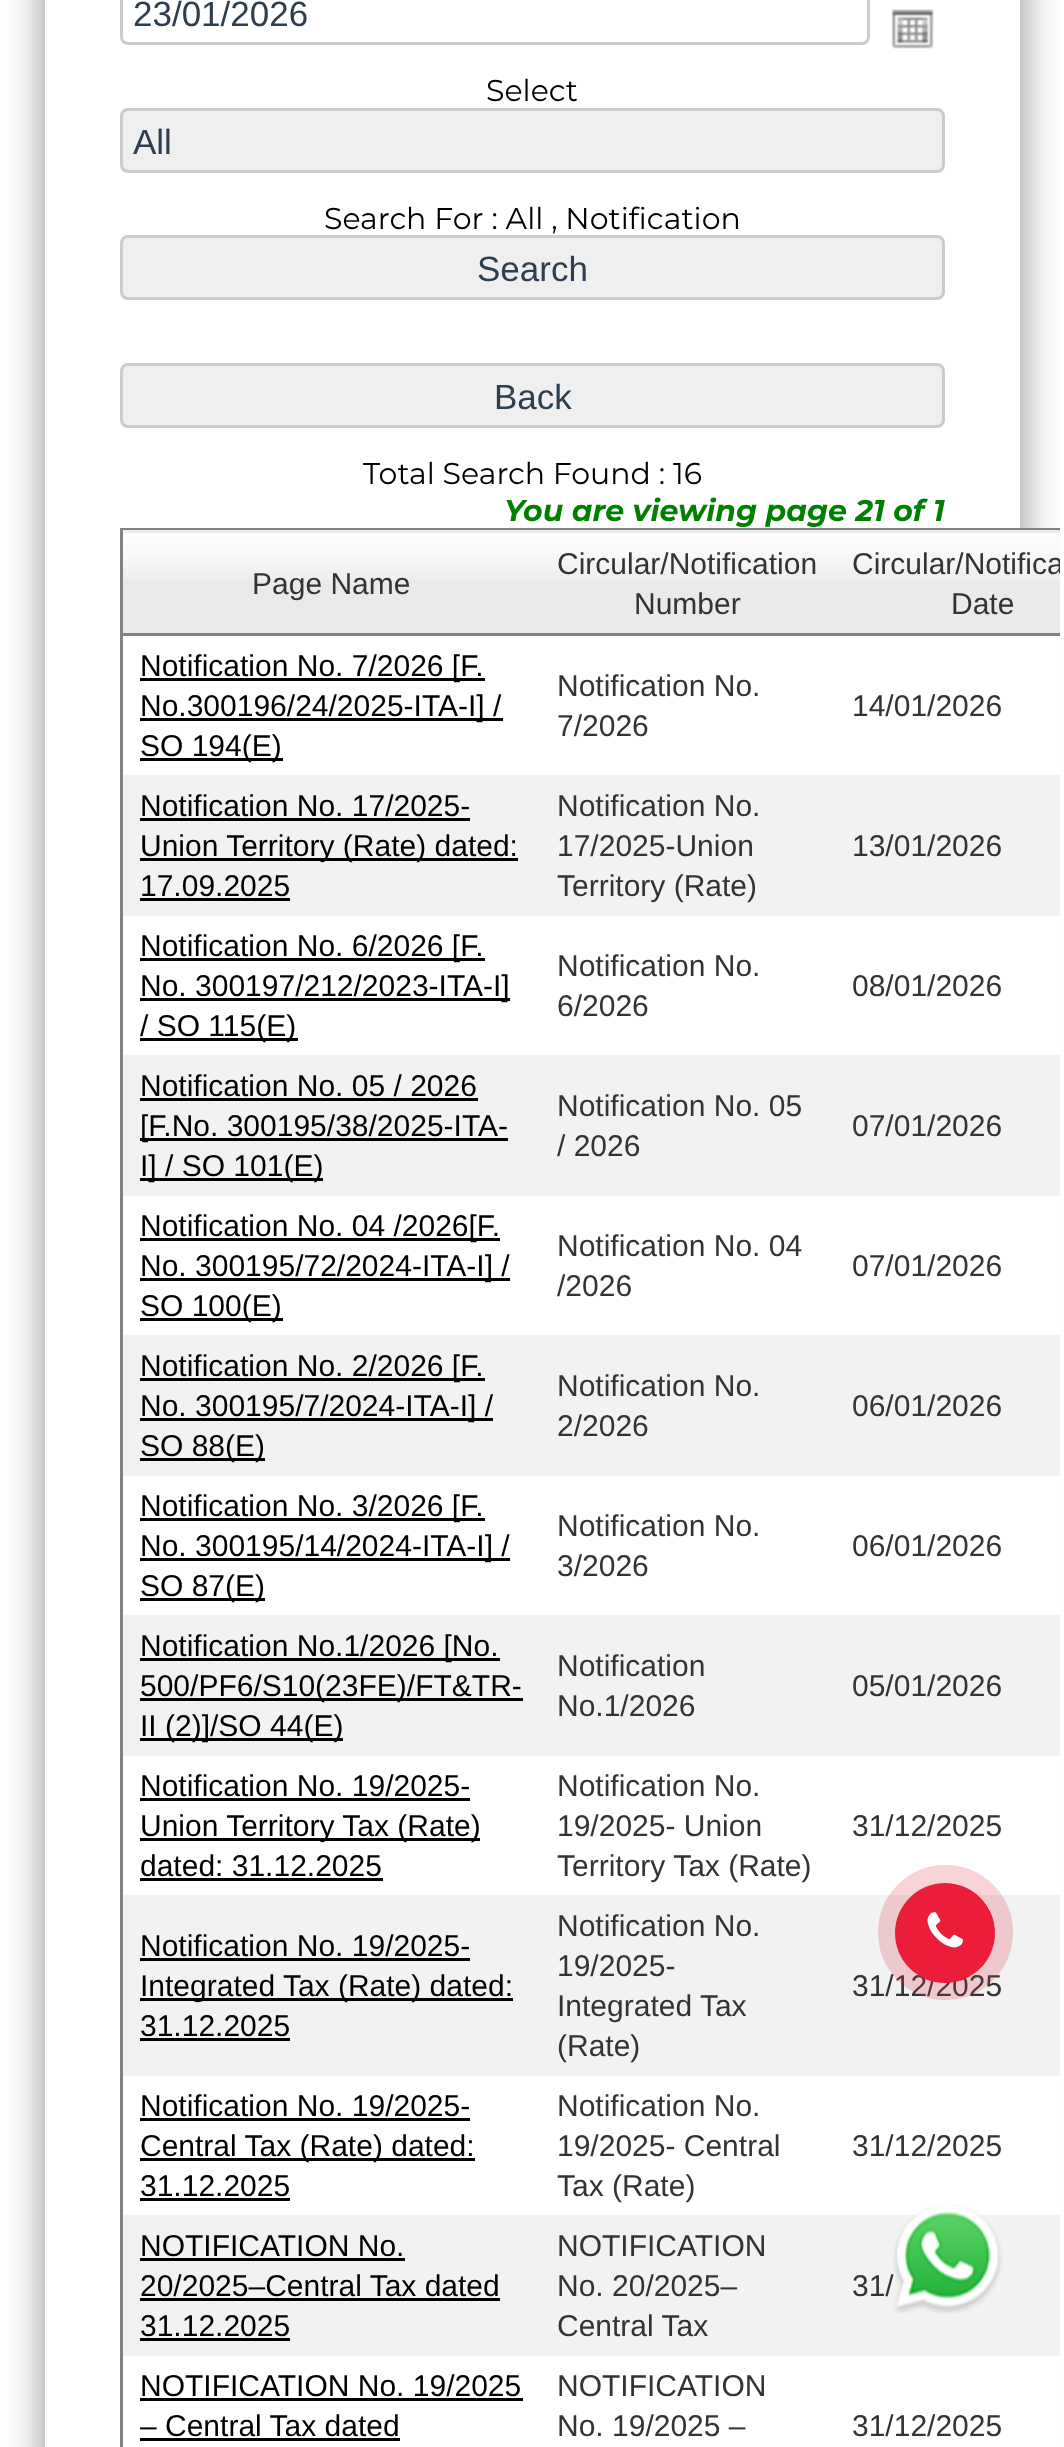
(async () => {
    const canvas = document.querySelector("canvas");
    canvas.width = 1064;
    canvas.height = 2447;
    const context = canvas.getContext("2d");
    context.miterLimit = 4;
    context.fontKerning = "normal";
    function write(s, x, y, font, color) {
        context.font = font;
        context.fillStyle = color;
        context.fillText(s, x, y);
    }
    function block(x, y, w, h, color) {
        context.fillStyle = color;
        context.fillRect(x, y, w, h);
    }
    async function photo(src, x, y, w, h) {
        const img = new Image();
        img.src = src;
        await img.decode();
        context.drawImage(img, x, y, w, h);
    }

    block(0, 0, 1064, 2447, "rgb(255, 255, 255)");
    context.save();
    context.beginPath();
    context.moveTo(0, 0);
    context.lineTo(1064, 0);
    context.lineTo(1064, 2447);
    context.lineTo(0, 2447);
    context.closePath();
    context.moveTo(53, -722);
    context.lineTo(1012, -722);
    context.bezierCurveTo(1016.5, -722, 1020, -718.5, 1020, -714);
    context.lineTo(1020, 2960);
    context.bezierCurveTo(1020, 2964.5, 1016.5, 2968, 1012, 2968);
    context.lineTo(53, 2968);
    context.bezierCurveTo(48.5, 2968, 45, 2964.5, 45, 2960);
    context.lineTo(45, -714);
    context.bezierCurveTo(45, -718.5, 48.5, -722, 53, -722);
    context.closePath();
    context.clip("evenodd");
    context.fillStyle = "rgba(0, 0, 0, 0.4)";
    context.filter = "blur(19px)";
    context.beginPath();
    context.roundRect(43, -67, 980, 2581, 10);
    context.fill();
    context.filter = "none";
    context.restore();
    context.beginPath();
    context.roundRect(121.5, -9.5, 747, 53, 6.5);
    context.strokeStyle = "rgb(204, 204, 204)";
    context.lineWidth = 3;
    context.stroke();
    write("23/01/2026", 133, 26, "35px Liberation Sans", "rgb(44, 62, 80)");
    await photo("media/1.png", 891, 9, 43, 40);
    write("Select", 486, 101, "30px Montserrat", "rgb(0, 0, 0)");
    context.fillStyle = "rgb(239, 239, 239)";
    context.beginPath();
    context.roundRect(121.5, 109.5, 822, 62, 6.5);
    context.fill();
    context.stroke();
    write("All", 133, 154, "35px Liberation Sans", "rgb(44, 62, 80)");
    write("Search For : All , Notification", 324, 229, "30px Montserrat", "rgb(0, 0, 0)");
    context.fillStyle = "rgb(239, 239, 239)";
    context.beginPath();
    context.roundRect(121.5, 236.5, 822, 62, 6.5);
    context.fill();
    context.stroke();
    write("Search", 477, 281, "35px Liberation Sans", "rgb(44, 62, 80)");
    context.fillStyle = "rgb(239, 239, 239)";
    context.beginPath();
    context.roundRect(121.5, 364.5, 822, 62, 6.5);
    context.fill();
    context.stroke();
    write("Back", 494, 409, "35px Liberation Sans", "rgb(44, 62, 80)");
    write("Total Search Found : 16", 363, 484, "30px Montserrat", "rgb(0, 0, 0)");
    write("You are viewing page 21 of 1", 504, 521, "italic bold 30px Montserrat", "rgb(0, 128, 0)");
    block(1020, 636, 40, 1811, "rgb(255, 255, 255)");
    context.save();
    context.beginPath();
    context.rect(5, 0, 1055, 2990);
    context.clip();
    context.strokeStyle = "rgb(130, 130, 130)";
    context.strokeRect(121.5, 529.5, 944, 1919);
    context.restore();
    block(123, 530, 937, 103, "rgb(234, 234, 234)");
    await photo("media/2.png", 123, 532, 417, 48);
    block(123, 633, 937, 3, "rgb(130, 130, 130)");
    write("Page Name", 252, 594, "30px Liberation Sans", "rgb(51, 51, 51)");
    await photo("media/3.png", 540, 532, 295, 48);
    write("Circular/Notification", 557, 574, "30px Liberation Sans", "rgb(51, 51, 51)");
    write("Number", 634, 614, "30px Liberation Sans", "rgb(51, 51, 51)");
    await photo("media/4.png", 835, 532, 225, 48);
    context.save();
    context.beginPath();
    context.rect(5, 0, 1055, 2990);
    context.clip();
    write("Circular/Notifica", 852, 574, "30px Liberation Sans", "rgb(51, 51, 51)");
    context.restore();
    write("Date", 951, 614, "30px Liberation Sans", "rgb(51, 51, 51)");
    block(140, 678, 345, 3, "rgb(0, 0, 0)");
    write("Notification No. 7/2026 [F.", 140, 676, "30px Liberation Sans", "rgb(0, 0, 0)");
    block(140, 718, 363, 3, "rgb(0, 0, 0)");
    write("No.300196/24/2025-ITA-I] /", 140, 716, "30px Liberation Sans", "rgb(0, 0, 0)");
    block(140, 758, 143, 3, "rgb(0, 0, 0)");
    write("SO 194(E)", 140, 756, "30px Liberation Sans", "rgb(0, 0, 0)");
    write("Notification No.", 557, 696, "30px Liberation Sans", "rgb(51, 51, 51)");
    write("7/2026", 557, 736, "30px Liberation Sans", "rgb(51, 51, 51)");
    write("14/01/2026", 852, 716, "30px Liberation Sans", "rgb(51, 51, 51)");
    block(123, 775, 937, 138, "rgb(242, 242, 242)");
    block(123, 913, 937, 3, "rgb(242, 242, 242)");
    write("Notification No. 17/2025-", 140, 816, "30px Liberation Sans", "rgb(0, 0, 0)");
    block(140, 818, 330, 3, "rgb(0, 0, 0)");
    block(140, 858, 378, 3, "rgb(0, 0, 0)");
    write("Union Territory (Rate) dated:", 140, 856, "30px Liberation Sans", "rgb(0, 0, 0)");
    write("17.09.2025", 140, 896, "30px Liberation Sans", "rgb(0, 0, 0)");
    block(140, 898, 150, 3, "rgb(0, 0, 0)");
    write("Notification No.", 557, 816, "30px Liberation Sans", "rgb(51, 51, 51)");
    write("17/2025-Union", 557, 856, "30px Liberation Sans", "rgb(51, 51, 51)");
    write("Territory (Rate)", 557, 896, "30px Liberation Sans", "rgb(51, 51, 51)");
    write("13/01/2026", 852, 856, "30px Liberation Sans", "rgb(51, 51, 51)");
    block(140, 958, 345, 3, "rgb(0, 0, 0)");
    write("Notification No. 6/2026 [F.", 140, 956, "30px Liberation Sans", "rgb(0, 0, 0)");
    block(140, 998, 370, 3, "rgb(0, 0, 0)");
    write("No. 300197/212/2023-ITA-I]", 140, 996, "30px Liberation Sans", "rgb(0, 0, 0)");
    block(140, 1038, 158, 3, "rgb(0, 0, 0)");
    write("/ SO 115(E)", 140, 1036, "30px Liberation Sans", "rgb(0, 0, 0)");
    write("Notification No.", 557, 976, "30px Liberation Sans", "rgb(51, 51, 51)");
    write("6/2026", 557, 1016, "30px Liberation Sans", "rgb(51, 51, 51)");
    write("08/01/2026", 852, 996, "30px Liberation Sans", "rgb(51, 51, 51)");
    block(123, 1055, 937, 138, "rgb(242, 242, 242)");
    block(123, 1193, 937, 3, "rgb(242, 242, 242)");
    write("Notification No. 05 / 2026", 140, 1096, "30px Liberation Sans", "rgb(0, 0, 0)");
    block(140, 1098, 338, 3, "rgb(0, 0, 0)");
    block(140, 1138, 368, 3, "rgb(0, 0, 0)");
    write("[F.No. 300195/38/2025-ITA-", 140, 1136, "30px Liberation Sans", "rgb(0, 0, 0)");
    block(140, 1178, 183, 3, "rgb(0, 0, 0)");
    write("I] / SO 101(E)", 140, 1176, "30px Liberation Sans", "rgb(0, 0, 0)");
    write("Notification No. 05", 557, 1116, "30px Liberation Sans", "rgb(51, 51, 51)");
    write("/ 2026", 557, 1156, "30px Liberation Sans", "rgb(51, 51, 51)");
    write("07/01/2026", 852, 1136, "30px Liberation Sans", "rgb(51, 51, 51)");
    block(140, 1238, 360, 3, "rgb(0, 0, 0)");
    write("Notification No. 04 /2026[F.", 140, 1236, "30px Liberation Sans", "rgb(0, 0, 0)");
    block(140, 1278, 370, 3, "rgb(0, 0, 0)");
    write("No. 300195/72/2024-ITA-I] /", 140, 1276, "30px Liberation Sans", "rgb(0, 0, 0)");
    block(140, 1318, 143, 3, "rgb(0, 0, 0)");
    write("SO 100(E)", 140, 1316, "30px Liberation Sans", "rgb(0, 0, 0)");
    write("Notification No. 04", 557, 1256, "30px Liberation Sans", "rgb(51, 51, 51)");
    write("/2026", 557, 1296, "30px Liberation Sans", "rgb(51, 51, 51)");
    write("07/01/2026", 852, 1276, "30px Liberation Sans", "rgb(51, 51, 51)");
    block(123, 1335, 937, 138, "rgb(242, 242, 242)");
    block(123, 1473, 937, 3, "rgb(242, 242, 242)");
    block(140, 1378, 345, 3, "rgb(0, 0, 0)");
    write("Notification No. 2/2026 [F.", 140, 1376, "30px Liberation Sans", "rgb(0, 0, 0)");
    block(140, 1418, 353, 3, "rgb(0, 0, 0)");
    write("No. 300195/7/2024-ITA-I] /", 140, 1416, "30px Liberation Sans", "rgb(0, 0, 0)");
    block(140, 1458, 125, 3, "rgb(0, 0, 0)");
    write("SO 88(E)", 140, 1456, "30px Liberation Sans", "rgb(0, 0, 0)");
    write("Notification No.", 557, 1396, "30px Liberation Sans", "rgb(51, 51, 51)");
    write("2/2026", 557, 1436, "30px Liberation Sans", "rgb(51, 51, 51)");
    write("06/01/2026", 852, 1416, "30px Liberation Sans", "rgb(51, 51, 51)");
    block(140, 1518, 345, 3, "rgb(0, 0, 0)");
    write("Notification No. 3/2026 [F.", 140, 1516, "30px Liberation Sans", "rgb(0, 0, 0)");
    block(140, 1558, 370, 3, "rgb(0, 0, 0)");
    write("No. 300195/14/2024-ITA-I] /", 140, 1556, "30px Liberation Sans", "rgb(0, 0, 0)");
    block(140, 1598, 125, 3, "rgb(0, 0, 0)");
    write("SO 87(E)", 140, 1596, "30px Liberation Sans", "rgb(0, 0, 0)");
    write("Notification No.", 557, 1536, "30px Liberation Sans", "rgb(51, 51, 51)");
    write("3/2026", 557, 1576, "30px Liberation Sans", "rgb(51, 51, 51)");
    write("06/01/2026", 852, 1556, "30px Liberation Sans", "rgb(51, 51, 51)");
    block(123, 1615, 937, 138, "rgb(242, 242, 242)");
    block(123, 1753, 937, 3, "rgb(242, 242, 242)");
    block(140, 1658, 360, 3, "rgb(0, 0, 0)");
    write("Notification No.1/2026 [No.", 140, 1656, "30px Liberation Sans", "rgb(0, 0, 0)");
    block(140, 1698, 383, 3, "rgb(0, 0, 0)");
    write("500/PF6/S10(23FE)/FT&TR-", 140, 1696, "30px Liberation Sans", "rgb(0, 0, 0)");
    block(140, 1738, 203, 3, "rgb(0, 0, 0)");
    write("II (2)]/SO 44(E)", 140, 1736, "30px Liberation Sans", "rgb(0, 0, 0)");
    write("Notification", 557, 1676, "30px Liberation Sans", "rgb(51, 51, 51)");
    write("No.1/2026", 557, 1716, "30px Liberation Sans", "rgb(51, 51, 51)");
    write("05/01/2026", 852, 1696, "30px Liberation Sans", "rgb(51, 51, 51)");
    write("Notification No. 19/2025-", 140, 1796, "30px Liberation Sans", "rgb(0, 0, 0)");
    block(140, 1798, 330, 3, "rgb(0, 0, 0)");
    block(140, 1838, 340, 3, "rgb(0, 0, 0)");
    write("Union Territory Tax (Rate)", 140, 1836, "30px Liberation Sans", "rgb(0, 0, 0)");
    write("dated: 31.12.2025", 140, 1876, "30px Liberation Sans", "rgb(0, 0, 0)");
    block(140, 1878, 243, 3, "rgb(0, 0, 0)");
    write("Notification No.", 557, 1796, "30px Liberation Sans", "rgb(51, 51, 51)");
    write("19/2025- Union", 557, 1836, "30px Liberation Sans", "rgb(51, 51, 51)");
    write("Territory Tax (Rate)", 557, 1876, "30px Liberation Sans", "rgb(51, 51, 51)");
    write("31/12/2025", 852, 1836, "30px Liberation Sans", "rgb(51, 51, 51)");
    block(123, 1895, 937, 178, "rgb(242, 242, 242)");
    block(123, 2073, 937, 3, "rgb(242, 242, 242)");
    write("Notification No. 19/2025-", 140, 1956, "30px Liberation Sans", "rgb(0, 0, 0)");
    block(140, 1958, 330, 3, "rgb(0, 0, 0)");
    block(140, 1998, 373, 3, "rgb(0, 0, 0)");
    write("Integrated Tax (Rate) dated:", 140, 1996, "30px Liberation Sans", "rgb(0, 0, 0)");
    write("31.12.2025", 140, 2036, "30px Liberation Sans", "rgb(0, 0, 0)");
    block(140, 2038, 150, 3, "rgb(0, 0, 0)");
    write("Notification No.", 557, 1936, "30px Liberation Sans", "rgb(51, 51, 51)");
    write("19/2025-", 557, 1976, "30px Liberation Sans", "rgb(51, 51, 51)");
    write("Integrated Tax", 557, 2016, "30px Liberation Sans", "rgb(51, 51, 51)");
    write("(Rate)", 557, 2056, "30px Liberation Sans", "rgb(51, 51, 51)");
    write("31/12/2025", 852, 1996, "30px Liberation Sans", "rgb(51, 51, 51)");
    write("Notification No. 19/2025-", 140, 2116, "30px Liberation Sans", "rgb(0, 0, 0)");
    block(140, 2118, 330, 3, "rgb(0, 0, 0)");
    block(140, 2158, 335, 3, "rgb(0, 0, 0)");
    write("Central Tax (Rate) dated:", 140, 2156, "30px Liberation Sans", "rgb(0, 0, 0)");
    write("31.12.2025", 140, 2196, "30px Liberation Sans", "rgb(0, 0, 0)");
    block(140, 2198, 150, 3, "rgb(0, 0, 0)");
    write("Notification No.", 557, 2116, "30px Liberation Sans", "rgb(51, 51, 51)");
    write("19/2025- Central", 557, 2156, "30px Liberation Sans", "rgb(51, 51, 51)");
    write("Tax (Rate)", 557, 2196, "30px Liberation Sans", "rgb(51, 51, 51)");
    write("31/12/2025", 852, 2156, "30px Liberation Sans", "rgb(51, 51, 51)");
    block(123, 2215, 937, 138, "rgb(242, 242, 242)");
    block(123, 2353, 937, 3, "rgb(242, 242, 242)");
    write("NOTIFICATION No.", 140, 2256, "30px Liberation Sans", "rgb(0, 0, 0)");
    block(140, 2258, 265, 3, "rgb(0, 0, 0)");
    write("20/2025–Central Tax dated", 140, 2296, "30px Liberation Sans", "rgb(0, 0, 0)");
    block(140, 2298, 360, 3, "rgb(0, 0, 0)");
    write("31.12.2025", 140, 2336, "30px Liberation Sans", "rgb(0, 0, 0)");
    block(140, 2338, 150, 3, "rgb(0, 0, 0)");
    write("NOTIFICATION", 557, 2256, "30px Liberation Sans", "rgb(51, 51, 51)");
    write("No. 20/2025–", 557, 2296, "30px Liberation Sans", "rgb(51, 51, 51)");
    write("Central Tax", 557, 2336, "30px Liberation Sans", "rgb(51, 51, 51)");
    write("31/", 852, 2296, "30px Liberation Sans", "rgb(51, 51, 51)");
    write("NOTIFICATION No. 19/2025", 140, 2396, "30px Liberation Sans", "rgb(0, 0, 0)");
    block(140, 2398, 383, 3, "rgb(0, 0, 0)");
    write("– Central Tax dated", 140, 2436, "30px Liberation Sans", "rgb(0, 0, 0)");
    block(140, 2438, 260, 3, "rgb(0, 0, 0)");
    write("NOTIFICATION", 557, 2396, "30px Liberation Sans", "rgb(51, 51, 51)");
    write("No. 19/2025 –", 557, 2436, "30px Liberation Sans", "rgb(51, 51, 51)");
    write("31/12/2025", 852, 2436, "30px Liberation Sans", "rgb(51, 51, 51)");
    context.beginPath();
    context.arc(945.5, 1932.5, 58.5, 0, Math.PI * 2);
    context.strokeStyle = "rgba(220, 53, 69, 0.21)";
    context.lineWidth = 18;
    context.stroke();
    context.fillStyle = "rgb(235, 29, 57)";
    context.beginPath();
    context.arc(945, 1933, 50, 0, Math.PI * 2);
    context.fill();
    await photo("media/5.png", 927, 1912, 36, 36);
    await photo("media/6.png", 893, 2204, 110, 110);
})();
